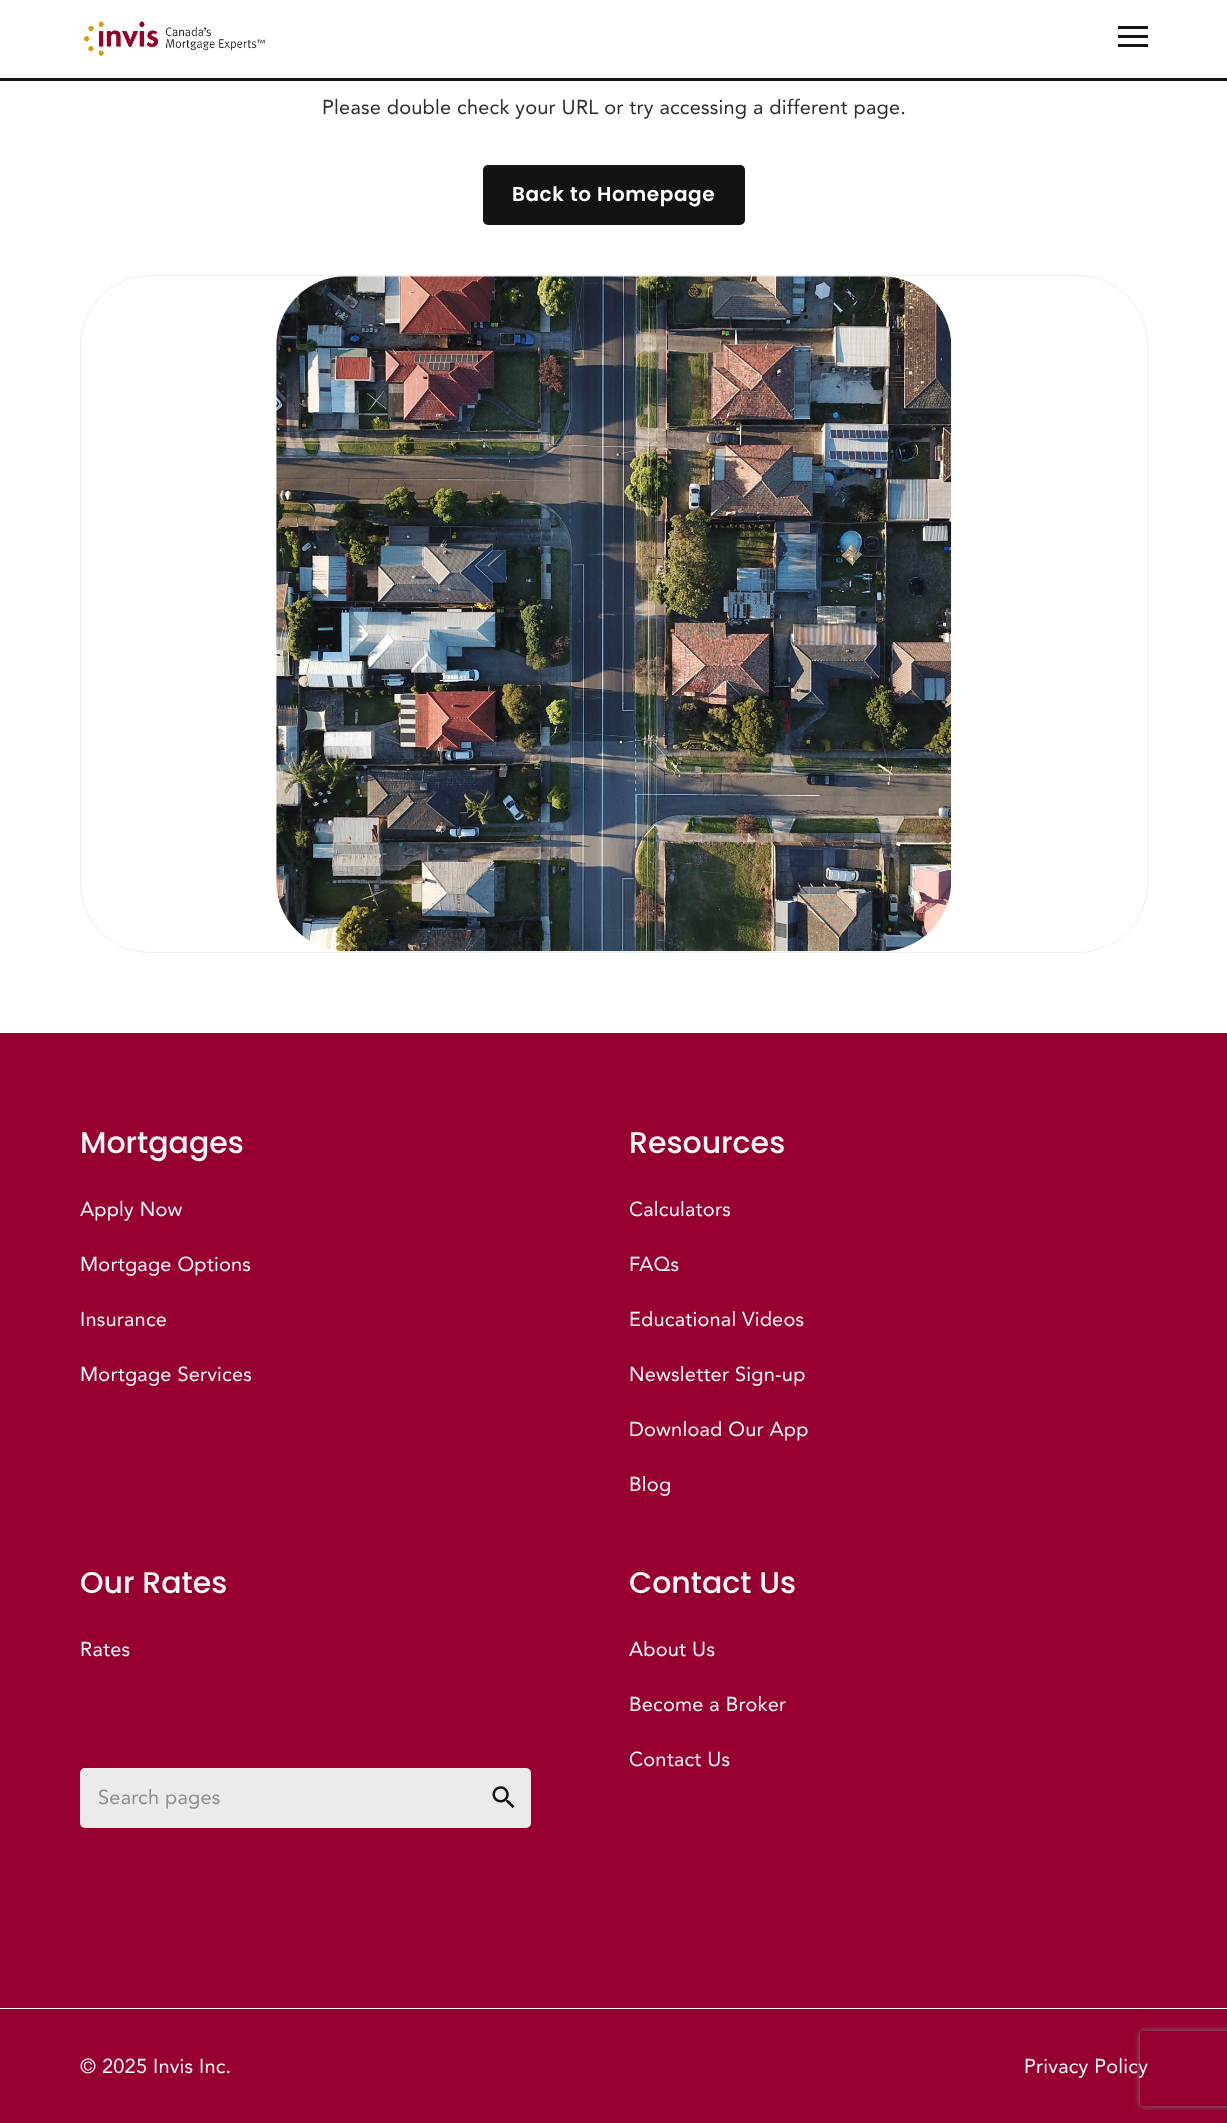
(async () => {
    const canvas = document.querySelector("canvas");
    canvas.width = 1227;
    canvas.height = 2123;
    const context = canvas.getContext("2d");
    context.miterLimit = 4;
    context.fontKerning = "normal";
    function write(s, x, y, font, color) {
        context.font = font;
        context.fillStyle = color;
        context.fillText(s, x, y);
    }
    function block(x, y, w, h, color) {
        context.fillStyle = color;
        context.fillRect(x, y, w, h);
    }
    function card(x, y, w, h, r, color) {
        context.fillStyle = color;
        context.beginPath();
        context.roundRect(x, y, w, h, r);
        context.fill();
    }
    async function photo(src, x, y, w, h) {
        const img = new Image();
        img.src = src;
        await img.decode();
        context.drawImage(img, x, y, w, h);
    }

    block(0, 0, 1227, 2123, "rgb(255, 255, 255)");
    block(0, 78, 1227, 3, "rgb(19, 19, 19)");
    await photo("media/1.png", 83, 21, 182, 36);
    block(1118, 26, 30, 3, "rgb(19, 19, 19)");
    block(1118, 35, 30, 3, "rgb(19, 19, 19)");
    block(1118, 44, 30, 3, "rgb(19, 19, 19)");
    context.letterSpacing = "0.2px";
    write("Please double check your URL or try accessing a different page.", 322, 114, "20px Avenir", "rgb(44, 44, 44)");
    card(483, 165, 262, 60, 5, "rgb(19, 19, 19)");
    context.letterSpacing = "0.6px";
    write("Back to Homepage", 512, 201, "600 20px Poppins", "rgb(255, 255, 255)");
    context.beginPath();
    context.roundRect(80.5, 275.5, 1067, 677, 69.5);
    context.strokeStyle = "rgb(238, 238, 238)";
    context.stroke();
    await photo("media/2.png", 276, 276, 676, 676);
    block(0, 1033, 1227, 1090, "rgb(151, 0, 46)");
    context.letterSpacing = "0px";
    write("Mortgages", 80, 1153, "500 30px Poppins", "rgb(248, 248, 248)");
    context.letterSpacing = "0.2px";
    write("Apply Now", 80, 1216, "20px Avenir", "rgb(248, 248, 248)");
    write("Mortgage Options", 80, 1271, "20px Avenir", "rgb(248, 248, 248)");
    write("Insurance", 80, 1326, "20px Avenir", "rgb(248, 248, 248)");
    write("Mortgage Services", 80, 1381, "20px Avenir", "rgb(248, 248, 248)");
    context.letterSpacing = "0px";
    write("Resources", 629, 1153, "500 30px Poppins", "rgb(248, 248, 248)");
    context.letterSpacing = "0.2px";
    write("Calculators", 629, 1216, "20px Avenir", "rgb(248, 248, 248)");
    write("FAQs", 629, 1271, "20px Avenir", "rgb(248, 248, 248)");
    write("Educational Videos", 629, 1326, "20px Avenir", "rgb(248, 248, 248)");
    write("Newsletter Sign-up", 629, 1381, "20px Avenir", "rgb(248, 248, 248)");
    write("Download Our App", 629, 1436, "20px Avenir", "rgb(248, 248, 248)");
    write("Blog", 629, 1491, "20px Avenir", "rgb(248, 248, 248)");
    context.letterSpacing = "0px";
    write("Our Rates", 80, 1593, "500 30px Poppins", "rgb(248, 248, 248)");
    context.letterSpacing = "0.2px";
    write("Rates", 80, 1656, "20px Avenir", "rgb(248, 248, 248)");
    card(80, 1768, 451, 60, 5, "rgb(235, 235, 235)");
    write("Search pages", 98, 1804, "20px Avenir", "rgb(142, 142, 142)");
    await photo("media/3.png", 492, 1786, 23, 22);
    context.letterSpacing = "0px";
    write("Contact Us", 629, 1593, "500 30px Poppins", "rgb(248, 248, 248)");
    context.letterSpacing = "0.2px";
    write("About Us", 629, 1656, "20px Avenir", "rgb(248, 248, 248)");
    write("Become a Broker", 629, 1711, "20px Avenir", "rgb(248, 248, 248)");
    write("Contact Us", 629, 1766, "20px Avenir", "rgb(248, 248, 248)");
    block(0, 2008, 1227, 1, "rgb(246, 246, 246)");
    write("© 2025 Invis Inc.", 80, 2073, "20px Avenir", "rgb(248, 248, 248)");
    write("Privacy Policy", 1024, 2073, "20px Avenir", "rgb(248, 248, 248)");
    context.save();
    context.beginPath();
    context.moveTo(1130, 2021);
    context.lineTo(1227, 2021);
    context.lineTo(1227, 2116);
    context.lineTo(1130, 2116);
    context.closePath();
    context.moveTo(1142.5, 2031);
    context.lineTo(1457.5, 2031);
    context.bezierCurveTo(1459, 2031, 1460, 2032, 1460, 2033.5);
    context.lineTo(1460, 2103.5);
    context.bezierCurveTo(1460, 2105, 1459, 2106, 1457.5, 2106);
    context.lineTo(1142.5, 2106);
    context.bezierCurveTo(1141, 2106, 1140, 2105, 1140, 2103.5);
    context.lineTo(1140, 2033.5);
    context.bezierCurveTo(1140, 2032, 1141, 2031, 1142.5, 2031);
    context.closePath();
    context.clip("evenodd");
    context.fillStyle = "rgb(128, 128, 128)";
    context.filter = "blur(3px)";
    context.beginPath();
    context.roundRect(1140, 2031, 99, 75, 2.5);
    context.fill();
    context.filter = "none";
    context.restore();
})();
